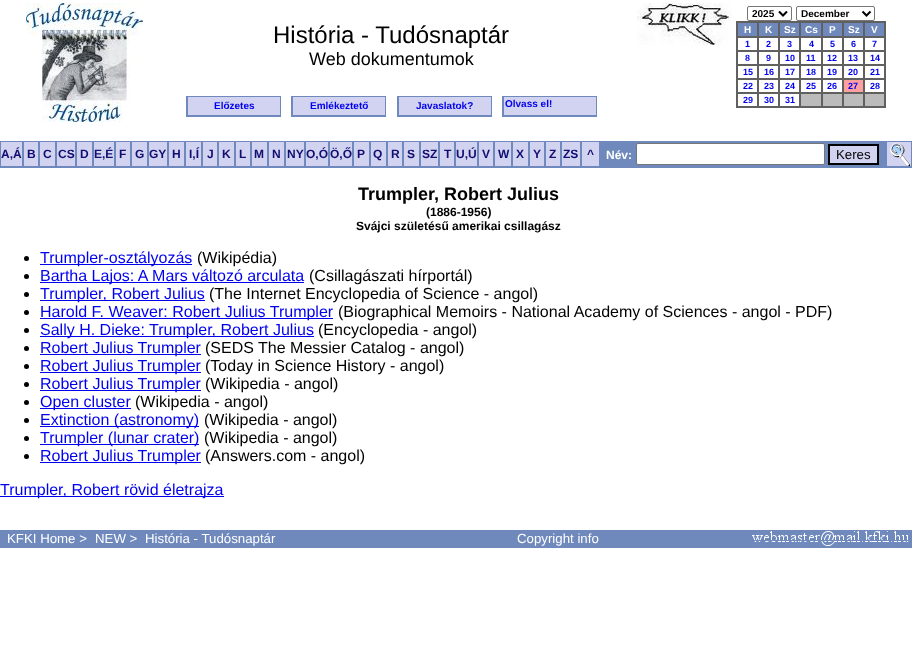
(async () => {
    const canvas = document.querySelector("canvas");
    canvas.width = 912;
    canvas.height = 667;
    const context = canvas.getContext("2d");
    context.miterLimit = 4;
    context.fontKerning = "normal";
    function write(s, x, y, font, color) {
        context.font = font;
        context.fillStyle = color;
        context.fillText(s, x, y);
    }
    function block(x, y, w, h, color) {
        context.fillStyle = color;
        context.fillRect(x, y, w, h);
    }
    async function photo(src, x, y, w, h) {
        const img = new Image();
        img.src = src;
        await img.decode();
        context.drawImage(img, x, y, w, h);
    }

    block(0, 0, 912, 667, "rgb(255, 255, 255)");
    await photo("media/1.png", 26, 3, 117, 119);
    write("História - Tudósnaptár", 273, 43, "24px Liberation Sans", "rgb(0, 0, 0)");
    write("Web dokumentumok", 309, 65, "18px Liberation Sans", "rgb(0, 0, 0)");
    await photo("media/2.png", 637, 3, 95, 42);
    context.beginPath();
    context.roundRect(747.5, 6.5, 44, 14, 1.5);
    context.strokeStyle = "rgb(118, 118, 118)";
    context.stroke();
    context.beginPath();
    context.moveTo(779, 11.5);
    context.lineTo(783, 15.5);
    context.lineTo(787, 11.5);
    context.strokeStyle = "rgb(0, 0, 0)";
    context.lineWidth = 2;
    context.stroke();
    write("2025", 752, 17, "bold 10px Liberation Sans", "rgb(0, 0, 0)");
    context.beginPath();
    context.roundRect(796.5, 6.5, 78, 14, 1.5);
    context.strokeStyle = "rgb(118, 118, 118)";
    context.lineWidth = 1;
    context.stroke();
    context.beginPath();
    context.moveTo(862.5, 11.5);
    context.lineTo(866.5, 15.5);
    context.lineTo(870.5, 11.5);
    context.strokeStyle = "rgb(0, 0, 0)";
    context.lineWidth = 2;
    context.stroke();
    write("December", 801, 17, "bold 10px Liberation Sans", "rgb(0, 0, 0)");
    block(736, 21, 150, 87, "rgb(96, 96, 96)");
    block(738, 23, 19, 13, "rgb(111, 137, 189)");
    write("H", 744, 33, "bold 10px Liberation Sans", "rgb(255, 255, 255)");
    block(759, 23, 19, 13, "rgb(111, 137, 189)");
    write("K", 765, 33, "bold 10px Liberation Sans", "rgb(255, 255, 255)");
    block(780, 23, 19, 13, "rgb(111, 137, 189)");
    write("Sz", 784, 33, "bold 10px Liberation Sans", "rgb(255, 255, 255)");
    block(801, 23, 20, 13, "rgb(111, 137, 189)");
    write("Cs", 805, 33, "bold 10px Liberation Sans", "rgb(255, 255, 255)");
    block(823, 23, 19, 13, "rgb(111, 137, 189)");
    write("P", 829, 33, "bold 10px Liberation Sans", "rgb(255, 255, 255)");
    block(844, 23, 19, 13, "rgb(111, 137, 189)");
    write("Sz", 848, 33, "bold 10px Liberation Sans", "rgb(255, 255, 255)");
    block(865, 23, 19, 13, "rgb(111, 137, 189)");
    write("V", 871, 33, "bold 10px Liberation Sans", "rgb(255, 255, 255)");
    block(738, 38, 19, 12, "rgb(255, 255, 255)");
    write("1", 745, 47, "bold 9px Liberation Sans", "rgb(0, 0, 238)");
    block(759, 38, 19, 12, "rgb(255, 255, 255)");
    write("2", 766, 47, "bold 9px Liberation Sans", "rgb(0, 0, 238)");
    block(780, 38, 19, 12, "rgb(255, 255, 255)");
    write("3", 787, 47, "bold 9px Liberation Sans", "rgb(0, 0, 238)");
    block(801, 38, 20, 12, "rgb(255, 255, 255)");
    write("4", 809, 47, "bold 9px Liberation Sans", "rgb(0, 0, 238)");
    block(823, 38, 19, 12, "rgb(255, 255, 255)");
    write("5", 830, 47, "bold 9px Liberation Sans", "rgb(0, 0, 238)");
    block(844, 38, 19, 12, "rgb(255, 255, 255)");
    write("6", 851, 47, "bold 9px Liberation Sans", "rgb(0, 0, 238)");
    block(865, 38, 19, 12, "rgb(255, 255, 255)");
    write("7", 872, 47, "bold 9px Liberation Sans", "rgb(0, 0, 238)");
    block(738, 52, 19, 12, "rgb(255, 255, 255)");
    write("8", 745, 61, "bold 9px Liberation Sans", "rgb(0, 0, 238)");
    block(759, 52, 19, 12, "rgb(255, 255, 255)");
    write("9", 766, 61, "bold 9px Liberation Sans", "rgb(0, 0, 238)");
    block(780, 52, 19, 12, "rgb(255, 255, 255)");
    write("10", 785, 61, "bold 9px Liberation Sans", "rgb(0, 0, 238)");
    block(801, 52, 20, 12, "rgb(255, 255, 255)");
    write("11", 806, 61, "bold 9px Liberation Sans", "rgb(0, 0, 238)");
    block(823, 52, 19, 12, "rgb(255, 255, 255)");
    write("12", 827, 61, "bold 9px Liberation Sans", "rgb(0, 0, 238)");
    block(844, 52, 19, 12, "rgb(255, 255, 255)");
    write("13", 848, 61, "bold 9px Liberation Sans", "rgb(0, 0, 238)");
    block(865, 52, 19, 12, "rgb(255, 255, 255)");
    write("14", 870, 61, "bold 9px Liberation Sans", "rgb(0, 0, 238)");
    block(738, 66, 19, 12, "rgb(255, 255, 255)");
    write("15", 743, 75, "bold 9px Liberation Sans", "rgb(0, 0, 238)");
    block(759, 66, 19, 12, "rgb(255, 255, 255)");
    write("16", 764, 75, "bold 9px Liberation Sans", "rgb(0, 0, 238)");
    block(780, 66, 19, 12, "rgb(255, 255, 255)");
    write("17", 785, 75, "bold 9px Liberation Sans", "rgb(0, 0, 238)");
    block(801, 66, 20, 12, "rgb(255, 255, 255)");
    write("18", 806, 75, "bold 9px Liberation Sans", "rgb(0, 0, 238)");
    block(823, 66, 19, 12, "rgb(255, 255, 255)");
    write("19", 827, 75, "bold 9px Liberation Sans", "rgb(0, 0, 238)");
    block(844, 66, 19, 12, "rgb(255, 255, 255)");
    write("20", 848, 75, "bold 9px Liberation Sans", "rgb(0, 0, 238)");
    block(865, 66, 19, 12, "rgb(255, 255, 255)");
    write("21", 870, 75, "bold 9px Liberation Sans", "rgb(0, 0, 238)");
    block(738, 80, 19, 12, "rgb(255, 255, 255)");
    write("22", 743, 89, "bold 9px Liberation Sans", "rgb(0, 0, 238)");
    block(759, 80, 19, 12, "rgb(255, 255, 255)");
    write("23", 764, 89, "bold 9px Liberation Sans", "rgb(0, 0, 238)");
    block(780, 80, 19, 12, "rgb(255, 255, 255)");
    write("24", 785, 89, "bold 9px Liberation Sans", "rgb(0, 0, 238)");
    block(801, 80, 20, 12, "rgb(255, 255, 255)");
    write("25", 806, 89, "bold 9px Liberation Sans", "rgb(0, 0, 238)");
    block(823, 80, 19, 12, "rgb(255, 255, 255)");
    write("26", 827, 89, "bold 9px Liberation Sans", "rgb(0, 0, 238)");
    block(844, 80, 19, 12, "rgb(255, 160, 160)");
    write("27", 848, 89, "bold 9px Liberation Sans", "rgb(0, 0, 238)");
    block(865, 80, 19, 12, "rgb(255, 255, 255)");
    write("28", 870, 89, "bold 9px Liberation Sans", "rgb(0, 0, 238)");
    block(738, 94, 19, 12, "rgb(255, 255, 255)");
    write("29", 743, 103, "bold 9px Liberation Sans", "rgb(0, 0, 238)");
    block(759, 94, 19, 12, "rgb(255, 255, 255)");
    write("30", 764, 103, "bold 9px Liberation Sans", "rgb(0, 0, 238)");
    block(780, 94, 19, 12, "rgb(255, 255, 255)");
    write("31", 785, 103, "bold 9px Liberation Sans", "rgb(0, 0, 238)");
    block(801, 94, 20, 12, "rgb(187, 187, 187)");
    block(823, 94, 19, 12, "rgb(187, 187, 187)");
    block(844, 94, 19, 12, "rgb(187, 187, 187)");
    block(865, 94, 19, 12, "rgb(187, 187, 187)");
    block(188, 97, 92, 18, "rgb(210, 210, 241)");
    block(186, 96, 95, 1, "rgb(111, 137, 189)");
    block(280, 96, 1, 21, "rgb(111, 137, 189)");
    block(186, 115, 95, 2, "rgb(111, 137, 189)");
    block(186, 96, 2, 21, "rgb(111, 137, 189)");
    write("Előzetes", 214, 109, "bold 10px Liberation Sans", "rgb(0, 0, 238)");
    block(293, 97, 92, 18, "rgb(210, 210, 241)");
    block(291, 96, 95, 1, "rgb(111, 137, 189)");
    block(385, 96, 1, 21, "rgb(111, 137, 189)");
    block(291, 115, 95, 2, "rgb(111, 137, 189)");
    block(291, 96, 2, 21, "rgb(111, 137, 189)");
    write("Emlékeztető", 310, 109, "bold 10px Liberation Sans", "rgb(0, 0, 238)");
    block(399, 97, 92, 18, "rgb(210, 210, 241)");
    block(397, 96, 95, 1, "rgb(111, 137, 189)");
    block(491, 96, 1, 21, "rgb(111, 137, 189)");
    block(397, 115, 95, 2, "rgb(111, 137, 189)");
    block(397, 96, 2, 21, "rgb(111, 137, 189)");
    write("Javaslatok?", 416, 109, "bold 10px Liberation Sans", "rgb(0, 0, 238)");
    block(504, 97, 92, 18, "rgb(210, 210, 241)");
    block(502, 96, 95, 1, "rgb(111, 137, 189)");
    block(596, 96, 1, 21, "rgb(111, 137, 189)");
    block(502, 115, 95, 2, "rgb(111, 137, 189)");
    block(502, 96, 2, 21, "rgb(111, 137, 189)");
    write("Olvass el!", 505, 107, "bold 10px Liberation Sans", "rgb(0, 0, 238)");
    block(0, 141, 912, 27, "rgb(111, 137, 189)");
    block(1, 142, 21, 24, "rgb(210, 210, 241)");
    write("A,Á", 1, 158, "bold 12px Liberation Sans", "rgb(16, 14, 113)");
    block(24, 142, 14, 24, "rgb(210, 210, 241)");
    write("B", 27, 158, "bold 12px Liberation Sans", "rgb(16, 14, 113)");
    block(40, 142, 15, 24, "rgb(210, 210, 241)");
    write("C", 43, 158, "bold 12px Liberation Sans", "rgb(16, 14, 113)");
    block(57, 142, 18, 24, "rgb(210, 210, 241)");
    write("CS", 58, 158, "bold 12px Liberation Sans", "rgb(16, 14, 113)");
    block(77, 142, 15, 24, "rgb(210, 210, 241)");
    write("D", 80, 158, "bold 12px Liberation Sans", "rgb(16, 14, 113)");
    block(94, 142, 20, 24, "rgb(210, 210, 241)");
    write("E,É", 94, 158, "bold 12px Liberation Sans", "rgb(16, 14, 113)");
    block(116, 142, 14, 24, "rgb(210, 210, 241)");
    write("F", 119, 158, "bold 12px Liberation Sans", "rgb(16, 14, 113)");
    block(132, 142, 15, 24, "rgb(210, 210, 241)");
    write("G", 135, 158, "bold 12px Liberation Sans", "rgb(16, 14, 113)");
    block(149, 142, 18, 24, "rgb(210, 210, 241)");
    write("GY", 149, 158, "bold 12px Liberation Sans", "rgb(16, 14, 113)");
    block(169, 142, 15, 24, "rgb(210, 210, 241)");
    write("H", 172, 158, "bold 12px Liberation Sans", "rgb(16, 14, 113)");
    block(186, 142, 15, 24, "rgb(210, 210, 241)");
    write("I,Í", 189, 158, "bold 12px Liberation Sans", "rgb(16, 14, 113)");
    block(203, 142, 14, 24, "rgb(210, 210, 241)");
    write("J", 207, 158, "bold 12px Liberation Sans", "rgb(16, 14, 113)");
    block(219, 142, 15, 24, "rgb(210, 210, 241)");
    write("K", 222, 158, "bold 12px Liberation Sans", "rgb(16, 14, 113)");
    block(236, 142, 14, 24, "rgb(210, 210, 241)");
    write("L", 239, 158, "bold 12px Liberation Sans", "rgb(16, 14, 113)");
    block(252, 142, 15, 24, "rgb(210, 210, 241)");
    write("M", 254, 158, "bold 12px Liberation Sans", "rgb(16, 14, 113)");
    block(269, 142, 15, 24, "rgb(210, 210, 241)");
    write("N", 272, 158, "bold 12px Liberation Sans", "rgb(16, 14, 113)");
    block(286, 142, 18, 24, "rgb(210, 210, 241)");
    write("NY", 287, 158, "bold 12px Liberation Sans", "rgb(16, 14, 113)");
    block(306, 142, 22, 24, "rgb(210, 210, 241)");
    write("O,Ó", 306, 158, "bold 12px Liberation Sans", "rgb(16, 14, 113)");
    block(330, 142, 22, 24, "rgb(210, 210, 241)");
    write("Ö,Ő", 330, 158, "bold 12px Liberation Sans", "rgb(16, 14, 113)");
    block(354, 142, 15, 24, "rgb(210, 210, 241)");
    write("P", 357, 158, "bold 12px Liberation Sans", "rgb(16, 14, 113)");
    block(371, 142, 15, 24, "rgb(210, 210, 241)");
    write("Q", 373, 158, "bold 12px Liberation Sans", "rgb(16, 14, 113)");
    block(388, 142, 14, 24, "rgb(210, 210, 241)");
    write("R", 391, 158, "bold 12px Liberation Sans", "rgb(16, 14, 113)");
    block(404, 142, 15, 24, "rgb(210, 210, 241)");
    write("S", 407, 158, "bold 12px Liberation Sans", "rgb(16, 14, 113)");
    block(421, 142, 17, 24, "rgb(210, 210, 241)");
    write("SZ", 422, 158, "bold 12px Liberation Sans", "rgb(16, 14, 113)");
    block(440, 142, 14, 24, "rgb(210, 210, 241)");
    write("T", 444, 158, "bold 12px Liberation Sans", "rgb(16, 14, 113)");
    block(456, 142, 21, 24, "rgb(210, 210, 241)");
    write("U,Ú", 456, 158, "bold 12px Liberation Sans", "rgb(16, 14, 113)");
    block(479, 142, 14, 24, "rgb(210, 210, 241)");
    write("V", 482, 158, "bold 12px Liberation Sans", "rgb(16, 14, 113)");
    block(495, 142, 16, 24, "rgb(210, 210, 241)");
    write("W", 498, 158, "bold 12px Liberation Sans", "rgb(16, 14, 113)");
    block(513, 142, 15, 24, "rgb(210, 210, 241)");
    write("X", 516, 158, "bold 12px Liberation Sans", "rgb(16, 14, 113)");
    block(530, 142, 14, 24, "rgb(210, 210, 241)");
    write("Y", 533, 158, "bold 12px Liberation Sans", "rgb(16, 14, 113)");
    block(546, 142, 14, 24, "rgb(210, 210, 241)");
    write("Z", 549, 158, "bold 12px Liberation Sans", "rgb(16, 14, 113)");
    block(562, 142, 18, 24, "rgb(210, 210, 241)");
    write("ZS", 563, 158, "bold 12px Liberation Sans", "rgb(16, 14, 113)");
    block(582, 142, 17, 24, "rgb(210, 210, 241)");
    write("^", 587, 158, "bold 12px Liberation Sans", "rgb(16, 14, 113)");
    write("Név:", 606, 159, "bold 12px Liberation Sans", "rgb(255, 255, 255)");
    context.beginPath();
    context.roundRect(636.5, 143.5, 188, 21, 1.5);
    context.fill();
    context.strokeStyle = "rgb(118, 118, 118)";
    context.lineWidth = 1;
    context.stroke();
    context.fillStyle = "rgb(210, 210, 241)";
    context.beginPath();
    context.rect(829, 145, 49, 19);
    context.fill();
    context.strokeStyle = "rgb(0, 0, 0)";
    context.lineWidth = 2;
    context.stroke();
    write("Keres", 836, 159, "13.25px Liberation Sans", "rgb(0, 0, 0)");
    block(887, 142, 3, 24, "rgb(210, 210, 241)");
    await photo("media/3.png", 890, 142, 21, 24);
    write("Trumpler, Robert Julius", 358, 200, "bold 18px Liberation Sans", "rgb(0, 0, 0)");
    write("(1886-1956)", 426, 216, "bold 12px Liberation Sans", "rgb(0, 0, 0)");
    write("Svájci születésű amerikai csillagász", 356, 230, "bold 12px Liberation Sans", "rgb(0, 0, 0)");
    context.beginPath();
    context.arc(26.5, 258.5, 2.5, 0, Math.PI * 2);
    context.fill();
    block(40, 264, 152, 1, "rgb(0, 0, 238)");
    write("Trumpler-osztályozás", 40, 263, "16px Liberation Sans", "rgb(0, 0, 238)");
    write("(Wikipédia)", 197, 263, "16px Liberation Sans", "rgb(0, 0, 0)");
    context.beginPath();
    context.arc(26.5, 276.5, 2.5, 0, Math.PI * 2);
    context.fill();
    block(40, 282, 264, 1, "rgb(0, 0, 238)");
    write("Bartha Lajos: A Mars változó arculata", 40, 281, "16px Liberation Sans", "rgb(0, 0, 238)");
    write("(Csillagászati hírportál)", 309, 281, "16px Liberation Sans", "rgb(0, 0, 0)");
    context.beginPath();
    context.arc(26.5, 294.5, 2.5, 0, Math.PI * 2);
    context.fill();
    block(40, 300, 165, 1, "rgb(0, 0, 238)");
    write("Trumpler, Robert Julius", 40, 299, "16px Liberation Sans", "rgb(0, 0, 238)");
    write("(The Internet Encyclopedia of Science - angol)", 209, 299, "16px Liberation Sans", "rgb(0, 0, 0)");
    context.beginPath();
    context.arc(26.5, 312.5, 2.5, 0, Math.PI * 2);
    context.fill();
    block(40, 318, 293, 1, "rgb(0, 0, 238)");
    write("Harold F. Weaver: Robert Julius Trumpler", 40, 317, "16px Liberation Sans", "rgb(0, 0, 238)");
    write("(Biographical Memoirs - National Academy of Sciences - angol - PDF)", 338, 317, "16px Liberation Sans", "rgb(0, 0, 0)");
    context.beginPath();
    context.arc(26.5, 330.5, 2.5, 0, Math.PI * 2);
    context.fill();
    block(40, 336, 274, 1, "rgb(0, 0, 238)");
    write("Sally H. Dieke: Trumpler, Robert Julius", 40, 335, "16px Liberation Sans", "rgb(0, 0, 238)");
    write("(Encyclopedia - angol)", 318, 335, "16px Liberation Sans", "rgb(0, 0, 0)");
    context.beginPath();
    context.arc(26.5, 348.5, 2.5, 0, Math.PI * 2);
    context.fill();
    block(40, 354, 161, 1, "rgb(0, 0, 238)");
    write("Robert Julius Trumpler", 40, 353, "16px Liberation Sans", "rgb(0, 0, 238)");
    write("(SEDS The Messier Catalog - angol)", 205, 353, "16px Liberation Sans", "rgb(0, 0, 0)");
    context.beginPath();
    context.arc(26.5, 366.5, 2.5, 0, Math.PI * 2);
    context.fill();
    block(40, 372, 161, 1, "rgb(0, 0, 238)");
    write("Robert Julius Trumpler", 40, 371, "16px Liberation Sans", "rgb(0, 0, 238)");
    write("(Today in Science History - angol)", 205, 371, "16px Liberation Sans", "rgb(0, 0, 0)");
    context.beginPath();
    context.arc(26.5, 384.5, 2.5, 0, Math.PI * 2);
    context.fill();
    block(40, 390, 161, 1, "rgb(0, 0, 238)");
    write("Robert Julius Trumpler", 40, 389, "16px Liberation Sans", "rgb(0, 0, 238)");
    write("(Wikipedia - angol)", 205, 389, "16px Liberation Sans", "rgb(0, 0, 0)");
    context.beginPath();
    context.arc(26.5, 402.5, 2.5, 0, Math.PI * 2);
    context.fill();
    block(40, 408, 91, 1, "rgb(0, 0, 238)");
    write("Open cluster", 40, 407, "16px Liberation Sans", "rgb(0, 0, 238)");
    write("(Wikipedia - angol)", 135, 407, "16px Liberation Sans", "rgb(0, 0, 0)");
    context.beginPath();
    context.arc(26.5, 420.5, 2.5, 0, Math.PI * 2);
    context.fill();
    block(40, 426, 159, 1, "rgb(0, 0, 238)");
    write("Extinction (astronomy)", 40, 425, "16px Liberation Sans", "rgb(0, 0, 238)");
    write("(Wikipedia - angol)", 204, 425, "16px Liberation Sans", "rgb(0, 0, 0)");
    context.beginPath();
    context.arc(26.5, 438.5, 2.5, 0, Math.PI * 2);
    context.fill();
    block(40, 444, 159, 1, "rgb(0, 0, 238)");
    write("Trumpler (lunar crater)", 40, 443, "16px Liberation Sans", "rgb(0, 0, 238)");
    write("(Wikipedia - angol)", 204, 443, "16px Liberation Sans", "rgb(0, 0, 0)");
    context.beginPath();
    context.arc(26.5, 456.5, 2.5, 0, Math.PI * 2);
    context.fill();
    block(40, 462, 161, 1, "rgb(0, 0, 238)");
    write("Robert Julius Trumpler", 40, 461, "16px Liberation Sans", "rgb(0, 0, 238)");
    write("(Answers.com - angol)", 205, 461, "16px Liberation Sans", "rgb(0, 0, 0)");
    block(0, 496, 224, 1, "rgb(0, 0, 238)");
    write("Trumpler, Robert rövid életrajza", 0, 495, "16px Liberation Sans", "rgb(0, 0, 238)");
    block(0, 530, 912, 18, "rgb(111, 137, 189)");
    write("KFKI Home >", 7, 543, "13.25px Liberation Sans", "rgb(255, 255, 255)");
    write("NEW >", 95, 543, "13.25px Liberation Sans", "rgb(255, 255, 255)");
    write("História - Tudósnaptár", 145, 543, "13.25px Liberation Sans", "rgb(255, 255, 255)");
    write("Copyright info", 517, 543, "13.25px Liberation Sans", "rgb(255, 255, 255)");
    await photo("media/4.png", 752, 531, 157, 15);
})();
